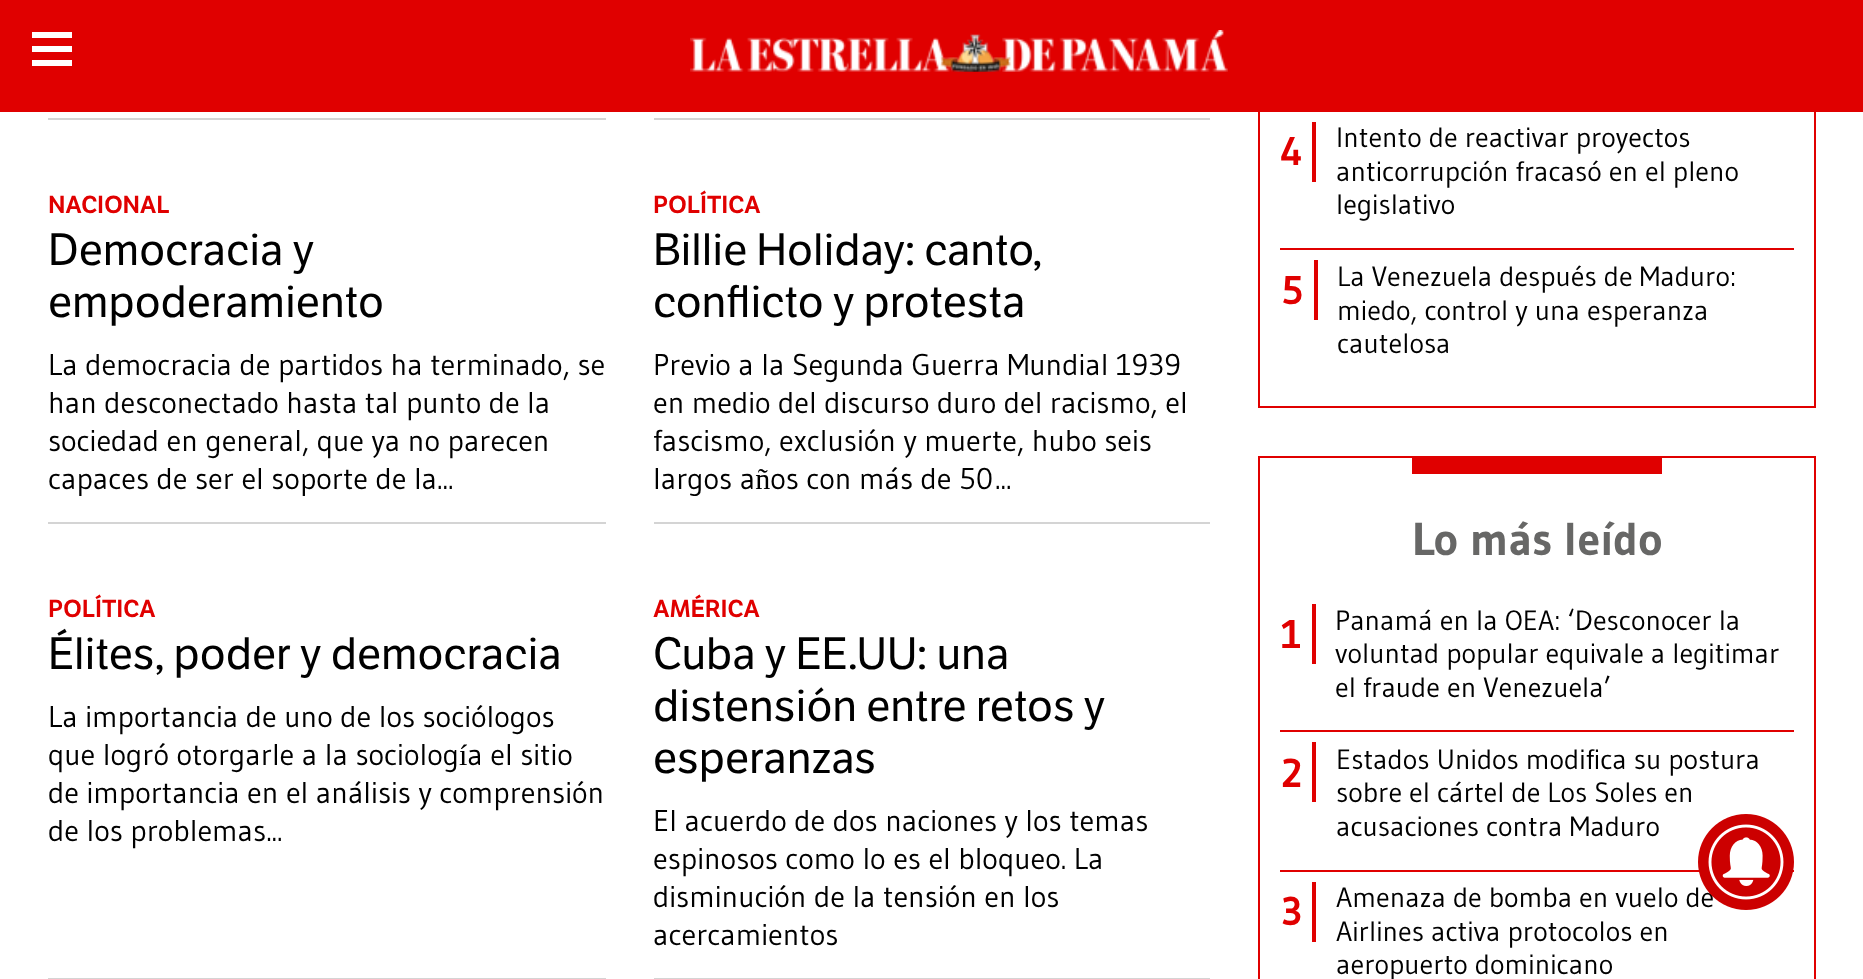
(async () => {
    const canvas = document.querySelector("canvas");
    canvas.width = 1863;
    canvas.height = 979;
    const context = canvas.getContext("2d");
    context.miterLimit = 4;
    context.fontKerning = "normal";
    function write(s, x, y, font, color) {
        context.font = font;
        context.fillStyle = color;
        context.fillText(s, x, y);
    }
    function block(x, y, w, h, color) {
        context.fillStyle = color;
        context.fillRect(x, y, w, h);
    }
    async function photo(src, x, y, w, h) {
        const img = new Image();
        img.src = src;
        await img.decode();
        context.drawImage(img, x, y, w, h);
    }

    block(0, 0, 1863, 979, "rgb(255, 255, 255)");
    context.strokeStyle = "rgb(224, 0, 0)";
    context.lineWidth = 2;
    context.strokeRect(1259, -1, 556, 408);
    block(0, 0, 1863, 112, "rgb(224, 0, 0)");
    block(32, 32, 40, 6, "rgb(255, 255, 255)");
    block(32, 46, 40, 6, "rgb(255, 255, 255)");
    block(32, 60, 40, 6, "rgb(255, 255, 255)");
    await photo("media/1.png", 690, 30, 538, 42);
    block(48, 118, 558, 2, "rgb(212, 212, 212)");
    block(654, 118, 556, 2, "rgb(212, 212, 212)");
    block(48, 522, 558, 2, "rgb(212, 212, 212)");
    context.letterSpacing = "-0.25px";
    write("NACIONAL", 48, 213, "600 24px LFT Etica", "rgb(224, 0, 0)");
    context.letterSpacing = "0px";
    write("Democracia y", 48, 265, "44px LFT Etica", "rgb(0, 0, 0)");
    write("empoderamiento", 48, 317, "44px LFT Etica", "rgb(0, 0, 0)");
    write("La democracia de partidos ha terminado, se", 48, 375, "30px Gudea", "rgb(0, 0, 0)");
    write("han desconectado hasta tal punto de la", 48, 413, "30px Gudea", "rgb(0, 0, 0)");
    write("sociedad en general, que ya no parecen", 48, 451, "30px Gudea", "rgb(0, 0, 0)");
    context.save();
    context.beginPath();
    context.rect(48, 346, 558, 150);
    context.clip();
    write("capaces de ser el soporte de la", 48, 489, "30px Gudea", "rgb(0, 0, 0)");
    context.restore();
    write("...", 437, 489, "30px Gudea", "rgb(0, 0, 0)");
    block(654, 522, 556, 2, "rgb(212, 212, 212)");
    context.letterSpacing = "-0.25px";
    write("POLÍTICA", 653, 213, "600 24px LFT Etica", "rgb(224, 0, 0)");
    context.letterSpacing = "0px";
    write("Billie Holiday: canto,", 653, 265, "44px LFT Etica", "rgb(0, 0, 0)");
    write("conflicto y protesta", 653, 317, "44px LFT Etica", "rgb(0, 0, 0)");
    write("Previo a la Segunda Guerra Mundial 1939", 653, 375, "30px Gudea", "rgb(0, 0, 0)");
    write("en medio del discurso duro del racismo, el", 653, 413, "30px Gudea", "rgb(0, 0, 0)");
    write("fascismo, exclusión y muerte, hubo seis", 653, 451, "30px Gudea", "rgb(0, 0, 0)");
    context.save();
    context.beginPath();
    context.rect(654, 346, 556, 150);
    context.clip();
    write("largos años con más de 50", 653, 489, "30px Gudea", "rgb(0, 0, 0)");
    context.restore();
    write("...", 995, 489, "30px Gudea", "rgb(0, 0, 0)");
    block(48, 978, 558, 1, "rgb(212, 212, 212)");
    context.letterSpacing = "-0.25px";
    write("POLÍTICA", 48, 617, "600 24px LFT Etica", "rgb(224, 0, 0)");
    context.letterSpacing = "0px";
    write("Élites, poder y democracia", 48, 669, "44px LFT Etica", "rgb(0, 0, 0)");
    write("La importancia de uno de los sociólogos", 48, 727, "30px Gudea", "rgb(0, 0, 0)");
    write("que logró otorgarle a la sociología el sitio", 48, 765, "30px Gudea", "rgb(0, 0, 0)");
    write("de importancia en el análisis y comprensión", 48, 803, "30px Gudea", "rgb(0, 0, 0)");
    write("de los problemas...", 48, 841, "30px Gudea", "rgb(0, 0, 0)");
    block(654, 978, 556, 1, "rgb(212, 212, 212)");
    context.letterSpacing = "-0.25px";
    write("AMÉRICA", 653, 617, "600 24px LFT Etica", "rgb(224, 0, 0)");
    context.letterSpacing = "0px";
    write("Cuba y EE.UU: una", 653, 669, "44px LFT Etica", "rgb(0, 0, 0)");
    write("distensión entre retos y", 653, 721, "44px LFT Etica", "rgb(0, 0, 0)");
    write("esperanzas", 653, 773, "44px LFT Etica", "rgb(0, 0, 0)");
    write("El acuerdo de dos naciones y los temas", 653, 831, "30px Gudea", "rgb(0, 0, 0)");
    write("espinosos como lo es el bloqueo. La", 653, 869, "30px Gudea", "rgb(0, 0, 0)");
    write("disminución de la tensión en los", 653, 907, "30px Gudea", "rgb(0, 0, 0)");
    write("acercamientos", 653, 945, "30px Gudea", "rgb(0, 0, 0)");
    block(1280, 248, 514, 2, "rgb(224, 0, 0)");
    block(1312, 122, 4, 60, "rgb(224, 0, 0)");
    write("4", 1281, 165, "bold 40px Gudea", "rgb(224, 0, 0)");
    write("Intento de reactivar proyectos", 1336, 147, "28px Gudea", "rgb(0, 0, 0)");
    write("anticorrupción fracasó en el pleno", 1336, 181, "28px Gudea", "rgb(0, 0, 0)");
    write("legislativo", 1336, 214, "28px Gudea", "rgb(0, 0, 0)");
    block(1314, 260, 4, 60, "rgb(224, 0, 0)");
    write("5", 1281, 304, "bold 40px Gudea", "rgb(224, 0, 0)");
    write("La Venezuela después de Maduro:", 1337, 286, "28px Gudea", "rgb(0, 0, 0)");
    write("miedo, control y una esperanza", 1337, 320, "28px Gudea", "rgb(0, 0, 0)");
    write("cautelosa", 1337, 353, "28px Gudea", "rgb(0, 0, 0)");
    context.strokeRect(1259, 457, 556, 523);
    block(1412, 458, 250, 16, "rgb(224, 0, 0)");
    write("Lo más leído", 1412, 555, "bold 46px Gudea", "rgb(103, 103, 102)");
    block(1280, 730, 514, 2, "rgb(224, 0, 0)");
    block(1312, 604, 4, 60, "rgb(224, 0, 0)");
    write("1", 1281, 648, "bold 40px Gudea", "rgb(224, 0, 0)");
    write("Panamá en la OEA: ‘Desconocer la", 1335, 630, "28px Gudea", "rgb(0, 0, 0)");
    write("voluntad popular equivale a legitimar", 1335, 663, "28px Gudea", "rgb(0, 0, 0)");
    write("el fraude en Venezuela’", 1335, 697, "28px Gudea", "rgb(0, 0, 0)");
    block(1280, 870, 514, 2, "rgb(224, 0, 0)");
    block(1312, 742, 4, 60, "rgb(224, 0, 0)");
    write("2", 1281, 787, "bold 40px Gudea", "rgb(224, 0, 0)");
    write("Estados Unidos modifica su postura", 1336, 769, "28px Gudea", "rgb(0, 0, 0)");
    write("sobre el cártel de Los Soles en", 1336, 802, "28px Gudea", "rgb(0, 0, 0)");
    write("acusaciones contra Maduro", 1336, 836, "28px Gudea", "rgb(0, 0, 0)");
    block(1312, 882, 4, 60, "rgb(224, 0, 0)");
    write("3", 1281, 925, "bold 40px Gudea", "rgb(224, 0, 0)");
    write("Amenaza de bomba en vuelo de", 1336, 907, "28px Gudea", "rgb(0, 0, 0)");
    write("Airlines activa protocolos en", 1336, 941, "28px Gudea", "rgb(0, 0, 0)");
    write("aeropuerto dominicano", 1336, 974, "28px Gudea", "rgb(0, 0, 0)");
    await photo("media/2.png", 1698, 814, 96, 96);
})();
